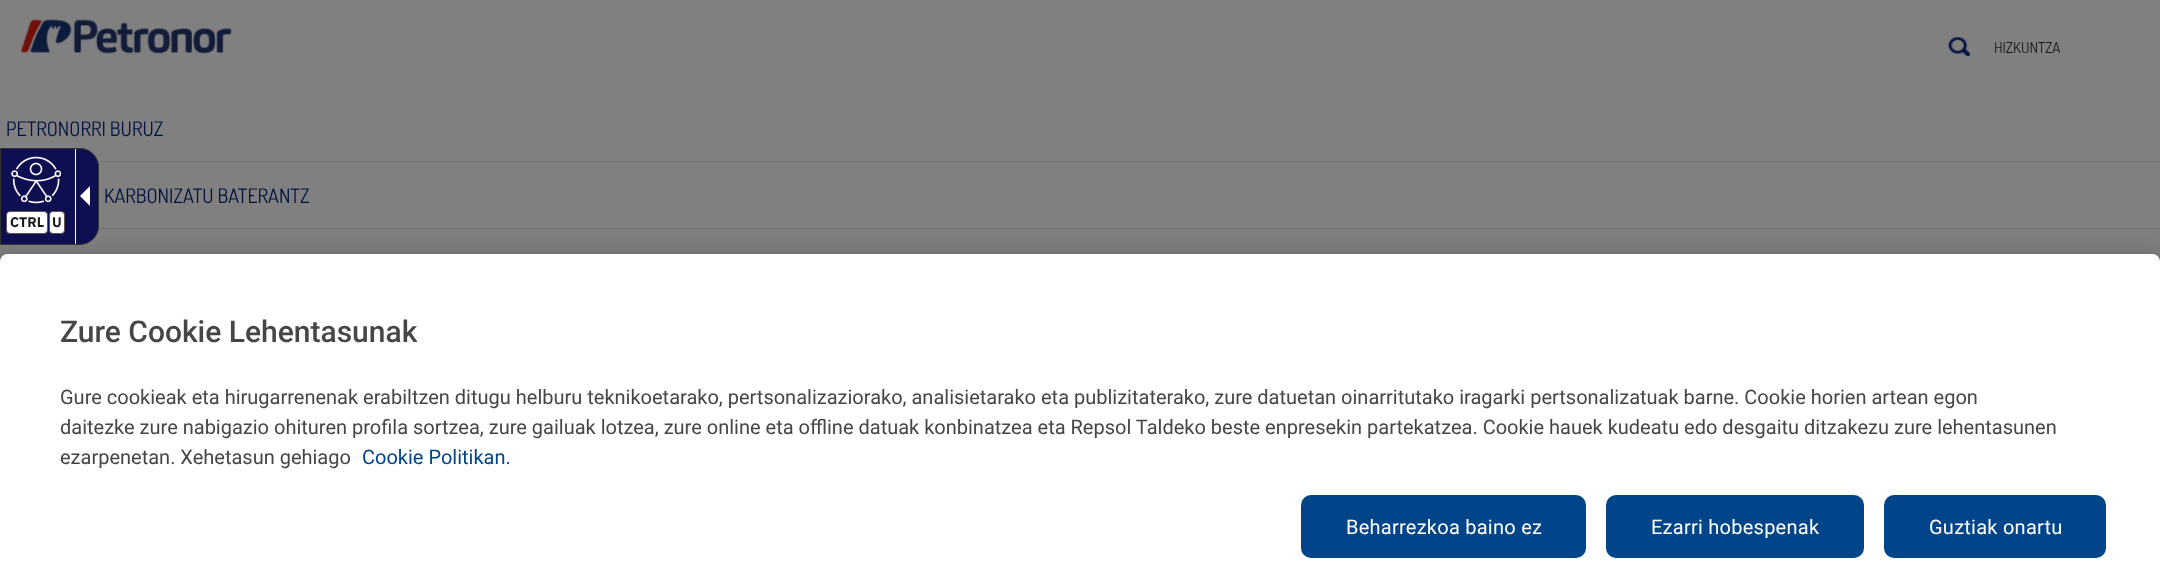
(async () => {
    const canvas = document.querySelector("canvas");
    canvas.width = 2160;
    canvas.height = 587;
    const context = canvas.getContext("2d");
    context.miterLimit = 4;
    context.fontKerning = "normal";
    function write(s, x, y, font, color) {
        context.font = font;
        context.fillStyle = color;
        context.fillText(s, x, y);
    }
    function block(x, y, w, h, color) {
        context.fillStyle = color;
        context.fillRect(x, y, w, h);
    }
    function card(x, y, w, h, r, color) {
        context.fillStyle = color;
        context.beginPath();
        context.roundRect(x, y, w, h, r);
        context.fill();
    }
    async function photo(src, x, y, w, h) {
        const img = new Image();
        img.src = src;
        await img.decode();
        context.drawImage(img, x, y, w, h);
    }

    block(0, 0, 2160, 587, "rgb(128, 128, 128)");
    await photo("media/1.png", 20, 19, 212, 35);
    await photo("media/2.png", 1948, 37, 22, 19);
    write("HIZKUNTZA", 1994, 53, "15px Dosis", "rgb(26, 26, 26)");
    block(98, 161, 2062, 1, "rgb(112, 112, 112)");
    write("PETRONORRI BURUZ", 6, 136, "20px Dosis", "rgb(1, 18, 64)");
    block(98, 228, 2062, 1, "rgb(112, 112, 112)");
    write("KARBONIZATU BATERANTZ", 104, 203, "20px Dosis", "rgb(1, 18, 64)");
    context.fillStyle = "rgba(0, 0, 0, 0.2)";
    context.filter = "blur(11px)";
    context.beginPath();
    context.roundRect(0, 254, 2160, 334, 8);
    context.fill();
    context.filter = "none";
    context.fillStyle = "rgb(14, 15, 81)";
    context.beginPath();
    context.roundRect(0.5, 148.5, 98, 96, [0, 18.5, 18.5, 0]);
    context.fill();
    context.strokeStyle = "rgb(51, 51, 51)";
    context.stroke();
    context.fillStyle = "rgb(255, 255, 255)";
    context.beginPath();
    context.moveTo(90, 186);
    context.lineTo(90, 206);
    context.lineTo(80, 196);
    context.closePath();
    context.fill();
    block(75, 149, 1, 95, "rgb(255, 255, 255)");
    await photo("media/3.png", 11, 156, 50, 48);
    context.beginPath();
    context.roundRect(6.5, 211.5, 41, 22, 3.5);
    context.fill();
    context.strokeStyle = "rgb(99, 82, 82)";
    context.stroke();
    write("CTRL", 10, 227, "bold 14px IBM Plex Sans", "rgb(26, 26, 26)");
    context.fillStyle = "rgb(255, 255, 255)";
    context.beginPath();
    context.roundRect(49.5, 211.5, 15, 22, 3.5);
    context.fill();
    context.stroke();
    write("U", 52, 227, "bold 14px IBM Plex Sans", "rgb(26, 26, 26)");
    context.fillStyle = "rgb(255, 255, 255)";
    context.beginPath();
    context.moveTo(8, 254);
    context.lineTo(2152, 254);
    context.bezierCurveTo(2156.5, 254, 2160, 257.5, 2160, 262);
    context.lineTo(2160, 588);
    context.lineTo(0, 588);
    context.lineTo(0, 262);
    context.bezierCurveTo(0, 257.5, 3.5, 254, 8, 254);
    context.closePath();
    context.fill();
    write("Zure Cookie Lehentasunak", 60, 342, "500 30px Roboto", "rgb(70, 70, 70)");
    write("Gure cookieak eta hirugarrenenak erabiltzen ditugu helburu teknikoetarako, pertsonalizaziorako, analisietarako eta publizitaterako, zure datuetan oinarritutako iragarki pertsonalizatuak barne. Cookie horien artean egon", 60, 404, "20px Roboto", "rgb(70, 70, 70)");
    write("daitezke zure nabigazio ohituren profila sortzea, zure gailuak lotzea, zure online eta offline datuak konbinatzea eta Repsol Taldeko beste enpresekin partekatzea. Cookie hauek kudeatu edo desgaitu ditzakezu zure lehentasunen", 60, 434, "20px Roboto", "rgb(70, 70, 70)");
    write("ezarpenetan. Xehetasun gehiago", 60, 464, "20px Roboto", "rgb(70, 70, 70)");
    write("Cookie Politikan.", 362, 464, "20px Roboto", "rgb(0, 68, 137)");
    card(1301, 495, 285, 63, 10, "rgb(0, 68, 137)");
    context.letterSpacing = "0.25px";
    write("Beharrezkoa baino ez", 1346, 534, "20px Roboto", "rgb(255, 255, 255)");
    card(1606, 495, 258, 63, 10, "rgb(0, 68, 137)");
    write("Ezarri hobespenak", 1651, 534, "20px Roboto", "rgb(255, 255, 255)");
    card(1884, 495, 222, 63, 10, "rgb(0, 68, 137)");
    write("Guztiak onartu", 1929, 534, "20px Roboto", "rgb(255, 255, 255)");
})();
